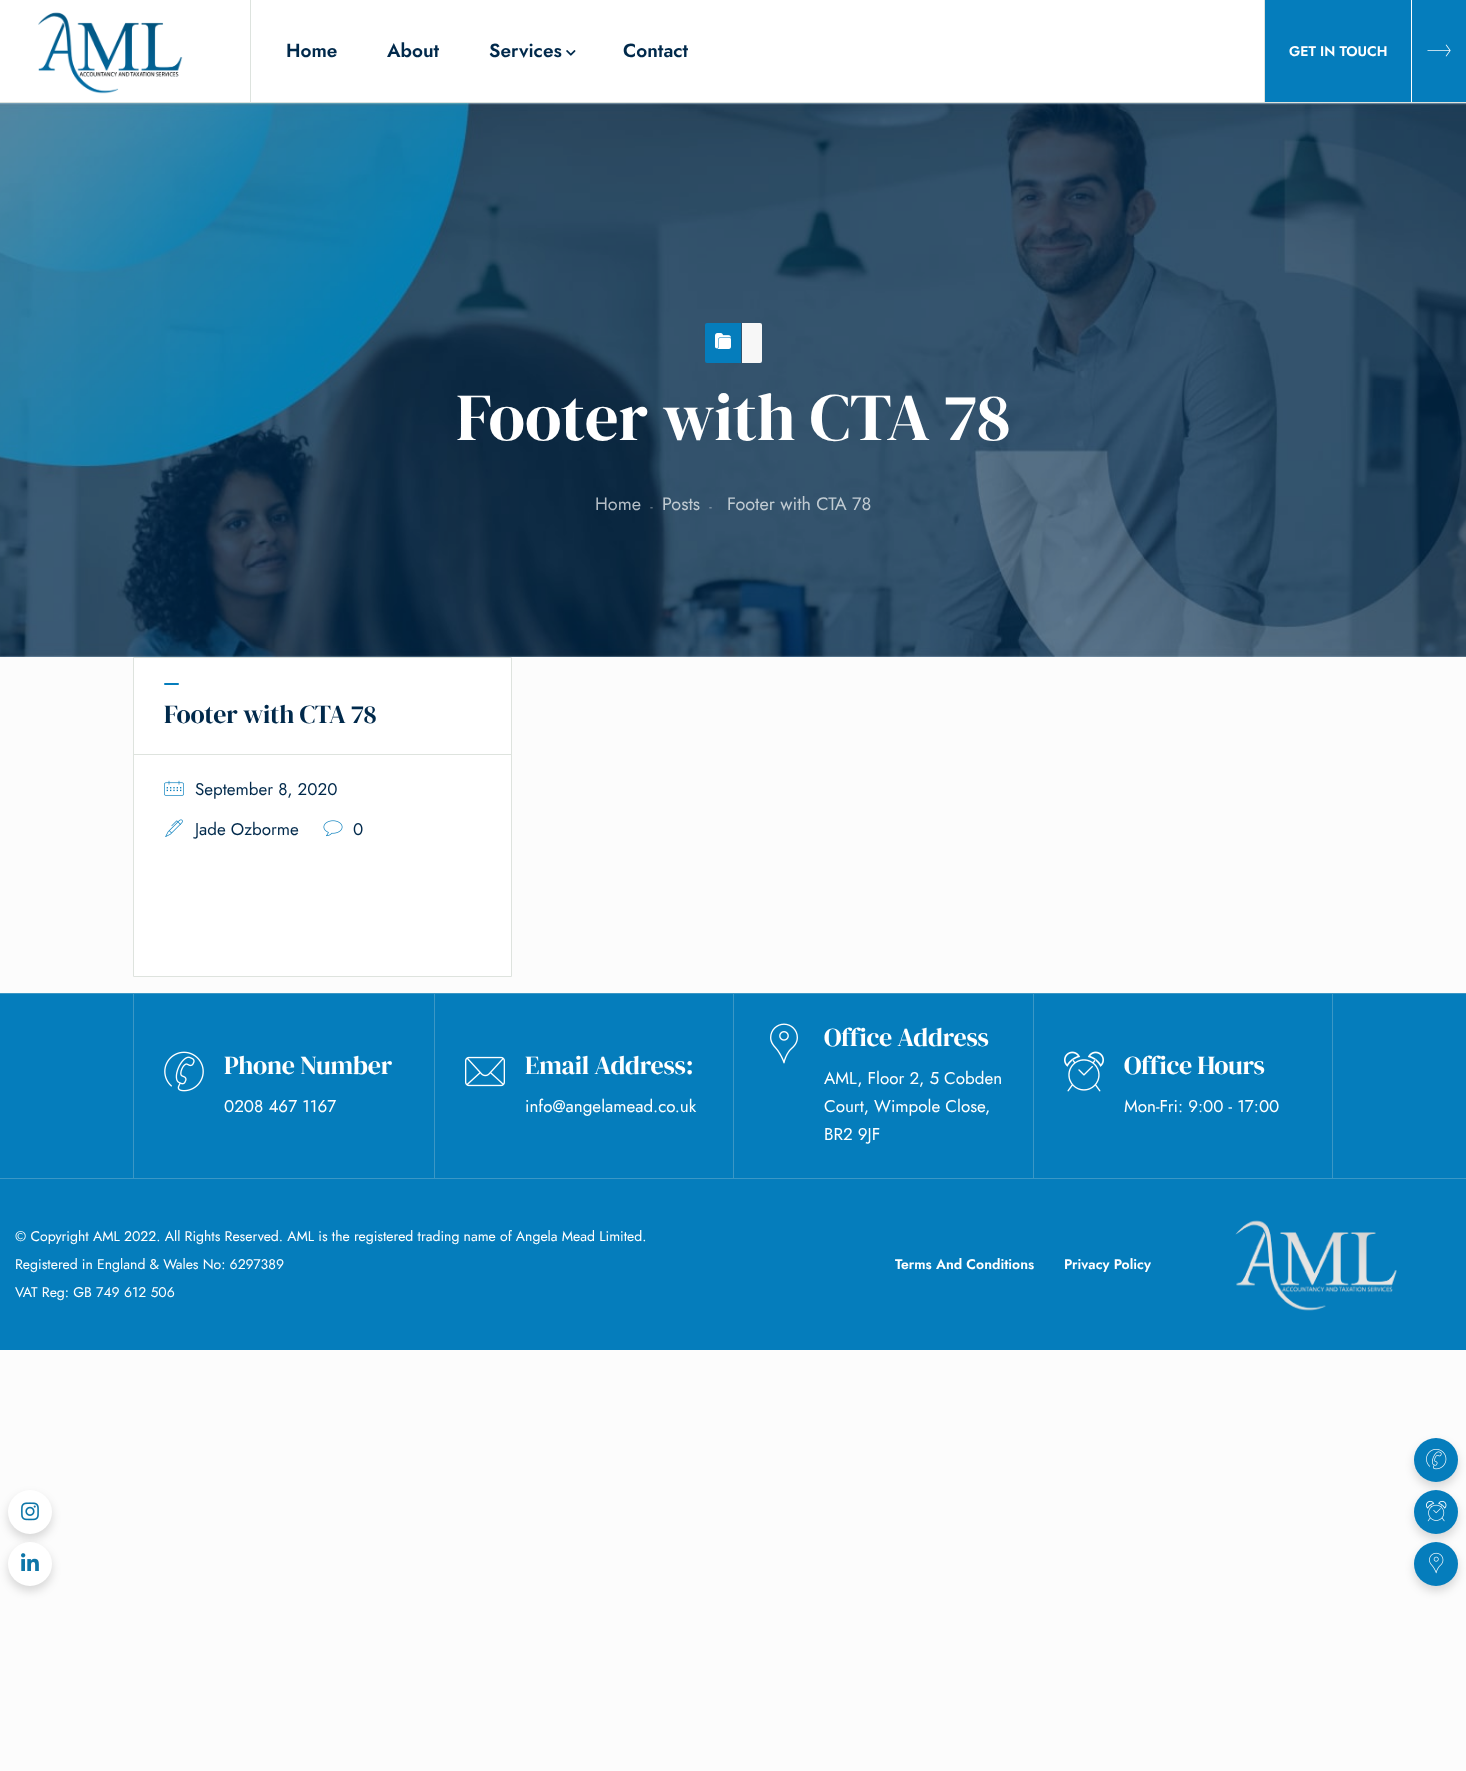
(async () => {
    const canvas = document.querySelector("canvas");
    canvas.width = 1466;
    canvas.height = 1771;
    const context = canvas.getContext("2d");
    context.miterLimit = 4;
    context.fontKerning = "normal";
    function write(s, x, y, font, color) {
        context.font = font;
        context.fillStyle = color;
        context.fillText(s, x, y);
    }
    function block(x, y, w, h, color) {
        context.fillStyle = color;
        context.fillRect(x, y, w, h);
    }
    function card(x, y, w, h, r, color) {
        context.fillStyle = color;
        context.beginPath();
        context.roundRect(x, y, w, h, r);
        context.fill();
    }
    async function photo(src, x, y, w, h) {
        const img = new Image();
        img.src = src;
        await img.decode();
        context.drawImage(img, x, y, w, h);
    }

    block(0, 0, 1466, 1771, "rgb(252, 252, 252)");
    block(0, 0, 1412, 102, "rgb(255, 255, 255)");
    block(0, 102, 1466, 1, "rgb(221, 227, 222)");
    await photo("media/1.png", 38, 12, 145, 82);
    block(250, 0, 1, 102, "rgb(221, 227, 222)");
    write("Home", 286, 57, "600 19px Jost", "rgb(0, 41, 75)");
    write("About", 387, 57, "600 19px Jost", "rgb(0, 41, 75)");
    write("Services", 489, 57, "600 19px Jost", "rgb(0, 41, 75)");
    await photo("media/2.png", 566, 50, 10, 6);
    write("Contact", 623, 57, "600 19px Jost", "rgb(0, 41, 75)");
    block(1264, 0, 1, 102, "rgb(221, 227, 222)");
    block(1265, 0, 146, 102, "rgb(5, 125, 188)");
    write("GET IN TOUCH", 1289, 56, "600 14px Jost", "rgb(255, 255, 255)");
    block(1412, 0, 54, 102, "rgb(5, 125, 188)");
    await photo("media/3.png", 1427, 44, 24, 13);
    await photo("media/4.png", 0, 103, 1466, 554);
    context.beginPath();
    context.roundRect(705, 323, 36, 40, [2, 0, 0, 2]);
    context.fill();
    await photo("media/5.png", 715, 333, 16, 16);
    context.fillStyle = "rgb(247, 247, 247)";
    context.beginPath();
    context.roundRect(742, 323, 20, 40, [0, 2, 2, 0]);
    context.fill();
    context.letterSpacing = "-0.25px";
    write("Footer with CTA 78", 456, 440, "67px DM Serif Display", "rgb(255, 255, 255)");
    context.letterSpacing = "0px";
    write("Home", 595, 510, "18px Jost", "rgb(181, 190, 198)");
    write("-", 650, 510, "9px Liberation Serif", "rgb(181, 190, 198)");
    write("Posts", 662, 510, "18px Jost", "rgb(193, 203, 210)");
    write("-", 709, 510, "9px Liberation Serif", "rgb(193, 203, 210)");
    write("Footer with CTA 78", 727, 510, "18px Jost", "rgb(193, 203, 210)");
    context.fillStyle = "rgb(255, 255, 255)";
    context.beginPath();
    context.rect(133.5, 657.5, 378, 319);
    context.fill();
    context.strokeStyle = "rgb(222, 227, 222)";
    context.stroke();
    card(164, 683, 15, 2, 1, "rgb(5, 125, 188)");
    block(134, 754, 377, 1, "rgb(222, 227, 222)");
    context.letterSpacing = "-0.25px";
    write("Footer with CTA 78", 164, 723, "26px DM Serif Display", "rgb(0, 41, 75)");
    await photo("media/6.png", 164, 780, 20, 16);
    context.letterSpacing = "0px";
    write("September 8, 2020", 195, 795, "17px Jost", "rgb(0, 41, 75)");
    await photo("media/7.png", 165, 819, 18, 18);
    write("Jade Ozborme", 195, 835, "17px Jost", "rgb(0, 41, 75)");
    await photo("media/8.png", 323, 820, 20, 17);
    write("0", 353, 835, "17px Jost", "rgb(0, 41, 75)");
    block(0, 994, 1466, 184, "rgb(5, 125, 188)");
    block(0, 993, 1466, 1, "rgb(59, 151, 197)");
    block(0, 1178, 1466, 1, "rgb(59, 151, 197)");
    block(1332, 994, 1, 184, "rgb(59, 151, 197)");
    block(133, 994, 1, 184, "rgb(59, 151, 197)");
    await photo("media/9.png", 164, 1051, 40, 41);
    context.letterSpacing = "-0.25px";
    write("Phone Number", 224, 1074, "26px DM Serif Display", "rgb(255, 255, 255)");
    context.letterSpacing = "0px";
    write("0208 467 1167", 224, 1112, "17px Jost", "rgb(255, 255, 255)");
    block(434, 994, 1, 184, "rgb(59, 151, 197)");
    await photo("media/10.png", 465, 1056, 40, 31);
    context.letterSpacing = "-0.25px";
    write("Email Address:", 525, 1074, "26px DM Serif Display", "rgb(255, 255, 255)");
    context.letterSpacing = "0px";
    write("info@angelamead.co.uk", 525, 1112, "17px Jost", "rgb(255, 255, 255)");
    block(733, 994, 1, 184, "rgb(59, 151, 197)");
    await photo("media/11.png", 770, 1023, 28, 41);
    context.letterSpacing = "-0.25px";
    write("Office Address", 824, 1046, "26px DM Serif Display", "rgb(255, 255, 255)");
    context.letterSpacing = "0px";
    write("AML, Floor 2, 5 Cobden", 824, 1084, "17px Jost", "rgb(255, 255, 255)");
    write("Court, Wimpole Close,", 824, 1112, "17px Jost", "rgb(255, 255, 255)");
    write("BR2 9JF", 824, 1140, "17px Jost", "rgb(255, 255, 255)");
    block(1033, 994, 1, 184, "rgb(59, 151, 197)");
    await photo("media/12.png", 1064, 1051, 40, 41);
    context.letterSpacing = "-0.25px";
    write("Office Hours", 1124, 1074, "26px DM Serif Display", "rgb(255, 255, 255)");
    context.letterSpacing = "0px";
    write("Mon-Fri: 9:00 - 17:00", 1124, 1112, "17px Jost", "rgb(255, 255, 255)");
    block(0, 1179, 1466, 171, "rgb(5, 125, 188)");
    write("© Copyright AML 2022. All Rights Reserved. AML is the registered trading name of Angela Mead Limited.", 15, 1241, "14px Jost", "rgb(255, 255, 255)");
    write("Registered in England & Wales No: 6297389", 15, 1269, "14px Jost", "rgb(255, 255, 255)");
    write("VAT Reg: GB 749 612 506", 15, 1297, "14px Jost", "rgb(255, 255, 255)");
    write("Terms And Conditions", 895, 1269, "600 14px Jost", "rgb(255, 255, 255)");
    write("Privacy Policy", 1064, 1269, "600 14px Jost", "rgb(255, 255, 255)");
    await photo("media/13.png", 1235, 1220, 162, 91);
    context.fillStyle = "rgba(0, 0, 0, 0.15)";
    context.filter = "blur(5px)";
    context.beginPath();
    context.roundRect(8, 1495, 44, 44, 22);
    context.fill();
    context.filter = "none";
    context.fillStyle = "rgb(255, 255, 255)";
    context.beginPath();
    context.arc(30, 1512, 22, 0, Math.PI * 2);
    context.fill();
    await photo("media/14.png", 21, 1502, 18, 19);
    context.fillStyle = "rgba(0, 0, 0, 0.15)";
    context.filter = "blur(5px)";
    context.beginPath();
    context.roundRect(8, 1547, 44, 44, 22);
    context.fill();
    context.filter = "none";
    context.fillStyle = "rgb(255, 255, 255)";
    context.beginPath();
    context.arc(30, 1564, 22, 0, Math.PI * 2);
    context.fill();
    await photo("media/15.png", 21, 1553, 18, 18);
    context.fillStyle = "rgba(0, 0, 0, 0.15)";
    context.filter = "blur(5px)";
    context.beginPath();
    context.roundRect(1414, 1443, 44, 44, 22);
    context.fill();
    context.filter = "none";
    context.fillStyle = "rgb(5, 125, 188)";
    context.beginPath();
    context.arc(1436, 1460, 22, 0, Math.PI * 2);
    context.fill();
    await photo("media/16.png", 1426, 1449, 21, 21);
    context.fillStyle = "rgba(0, 0, 0, 0.15)";
    context.filter = "blur(5px)";
    context.beginPath();
    context.roundRect(1414, 1495, 44, 44, 22);
    context.fill();
    context.filter = "none";
    context.fillStyle = "rgb(5, 125, 188)";
    context.beginPath();
    context.arc(1436, 1512, 22, 0, Math.PI * 2);
    context.fill();
    await photo("media/17.png", 1426, 1500, 21, 22);
    context.fillStyle = "rgba(0, 0, 0, 0.15)";
    context.filter = "blur(5px)";
    context.beginPath();
    context.roundRect(1414, 1547, 44, 44, 22);
    context.fill();
    context.filter = "none";
    context.fillStyle = "rgb(5, 125, 188)";
    context.beginPath();
    context.arc(1436, 1564, 22, 0, Math.PI * 2);
    context.fill();
    await photo("media/18.png", 1429, 1552, 15, 22);
})();
